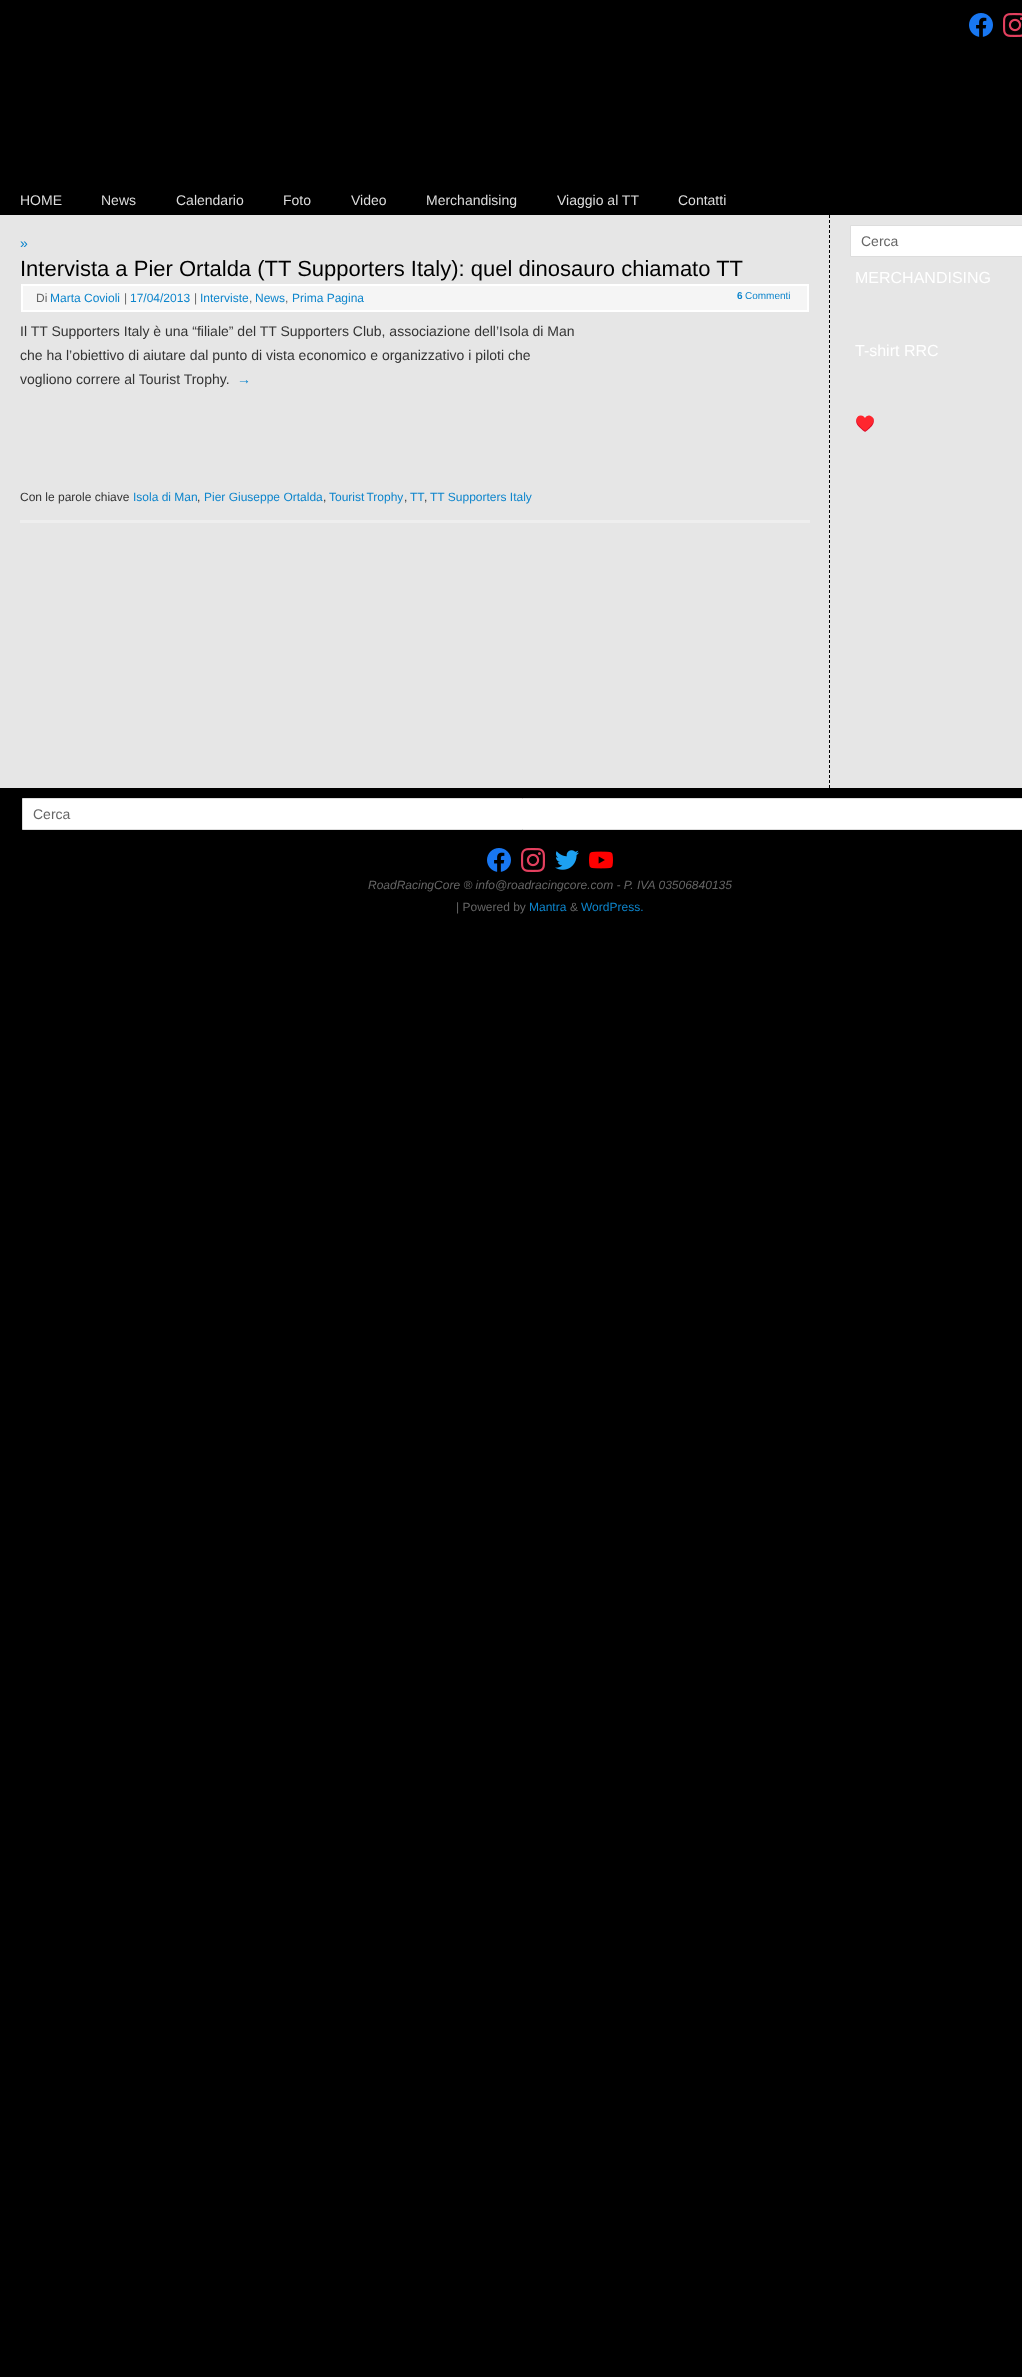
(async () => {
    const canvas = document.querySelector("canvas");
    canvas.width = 1022;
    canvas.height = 2377;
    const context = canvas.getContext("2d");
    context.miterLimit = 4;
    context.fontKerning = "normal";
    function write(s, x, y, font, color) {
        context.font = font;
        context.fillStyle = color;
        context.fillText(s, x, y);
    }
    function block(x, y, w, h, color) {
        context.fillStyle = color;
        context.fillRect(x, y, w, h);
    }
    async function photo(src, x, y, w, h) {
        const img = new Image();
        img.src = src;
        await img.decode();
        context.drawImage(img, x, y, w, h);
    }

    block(0, 0, 1022, 2377, "rgb(0, 0, 0)");
    await photo("media/1.png", 969, 13, 24, 24);
    await photo("media/2.png", 1003, 13, 19, 24);
    write("HOME", 20, 205, "14px Liberation Sans", "rgb(221, 221, 221)");
    write("News", 101, 205, "14px Liberation Sans", "rgb(221, 221, 221)");
    write("Calendario", 176, 205, "14px Liberation Sans", "rgb(221, 221, 221)");
    write("Foto", 283, 205, "14px Liberation Sans", "rgb(221, 221, 221)");
    write("Video", 351, 205, "14px Liberation Sans", "rgb(221, 221, 221)");
    write("Merchandising", 426, 205, "14px Liberation Sans", "rgb(221, 221, 221)");
    write("Viaggio al TT", 557, 205, "14px Liberation Sans", "rgb(221, 221, 221)");
    write("Contatti", 678, 205, "14px Liberation Sans", "rgb(221, 221, 221)");
    block(0, 215, 1022, 573, "rgb(230, 230, 230)");
    write("»", 20, 248, "14px Liberation Sans", "rgb(13, 133, 204)");
    block(20, 520, 790, 3, "rgb(238, 238, 238)");
    write("Intervista a Pier Ortalda (TT Supporters Italy): quel dinosauro chiamato TT", 20, 276, "22px Liberation Sans", "rgb(0, 0, 0)");
    context.fillStyle = "rgb(245, 245, 245)";
    context.beginPath();
    context.rect(22, 285, 786, 26);
    context.fill();
    context.strokeStyle = "rgb(255, 255, 255)";
    context.lineWidth = 2;
    context.stroke();
    write("Di", 36, 302, "12px Liberation Sans", "rgb(102, 102, 102)");
    write("Marta Covioli", 50, 302, "12px Liberation Sans", "rgb(13, 133, 204)");
    write("|", 124, 302, "12px Liberation Sans", "rgb(102, 102, 102)");
    write("17/04/2013", 130, 302, "12px Liberation Sans", "rgb(13, 133, 204)");
    write("|", 194, 302, "12px Liberation Sans", "rgb(102, 102, 102)");
    write("Interviste", 200, 302, "12px Liberation Sans", "rgb(13, 133, 204)");
    write(",", 249, 302, "12px Liberation Sans", "rgb(102, 102, 102)");
    write("News", 255, 302, "12px Liberation Sans", "rgb(13, 133, 204)");
    write(",", 285, 302, "12px Liberation Sans", "rgb(102, 102, 102)");
    write("Prima Pagina", 292, 302, "12px Liberation Sans", "rgb(13, 133, 204)");
    write("6", 737, 299, "bold 10px Liberation Sans", "rgb(13, 133, 204)");
    write("Commenti", 745, 299, "10px Liberation Sans", "rgb(13, 133, 204)");
    write("Il TT Supporters Italy è una “filiale” del TT Supporters Club, associazione dell’Isola di Man", 20, 336, "14px Liberation Sans", "rgb(51, 51, 51)");
    write("che ha l’obiettivo di aiutare dal punto di vista economico e organizzativo i piloti che", 20, 360, "14px Liberation Sans", "rgb(51, 51, 51)");
    write("vogliono correre al Tourist Trophy.", 20, 384, "14px Liberation Sans", "rgb(51, 51, 51)");
    write("→", 237, 384, "14px Liberation Sans", "rgb(13, 133, 204)");
    write("Con le parole chiave", 20, 501, "12px Liberation Sans", "rgb(51, 51, 51)");
    write("Isola di Man", 133, 501, "12px Liberation Sans", "rgb(13, 133, 204)");
    write(",", 197, 501, "12px Liberation Sans", "rgb(51, 51, 51)");
    write("Pier Giuseppe Ortalda", 204, 501, "12px Liberation Sans", "rgb(13, 133, 204)");
    write(",", 323, 501, "12px Liberation Sans", "rgb(51, 51, 51)");
    context.wordSpacing = "-1px";
    write("Tourist Trophy", 329, 501, "12px Liberation Sans", "rgb(13, 133, 204)");
    context.wordSpacing = "0px";
    write(",", 404, 501, "12px Liberation Sans", "rgb(51, 51, 51)");
    write("TT", 410, 501, "12px Liberation Sans", "rgb(13, 133, 204)");
    write("TT Supporters Italy", 430, 501, "12px Liberation Sans", "rgb(13, 133, 204)");
    write(",", 424, 501, "12px Liberation Sans", "rgb(51, 51, 51)");
    context.beginPath();
    context.moveTo(829.5, 215);
    context.lineTo(829.5, 788);
    context.strokeStyle = "rgb(0, 0, 0)";
    context.lineWidth = 1;
    context.setLineDash([3, 2]);
    context.stroke();
    context.fillStyle = "rgb(255, 255, 255)";
    context.beginPath();
    context.rect(850.5, 225.5, 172, 31);
    context.fill();
    context.strokeStyle = "rgb(221, 221, 221)";
    context.setLineDash([]);
    context.stroke();
    write("Cerca", 861, 246, "14px Liberation Sans", "rgb(102, 102, 102)");
    write("MERCHANDISING", 855, 283, "16px Liberation Sans", "rgb(255, 255, 255)");
    write("T-shirt RRC", 855, 356, "16px Liberation Sans", "rgb(255, 255, 255)");
    write("♥️", 855, 429, "16px Noto Color Emoji", "rgb(255, 255, 255)");
    context.beginPath();
    context.rect(22.5, 798.5, 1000, 31);
    context.fill();
    context.stroke();
    write("Cerca", 33, 819, "14px Liberation Sans", "rgb(102, 102, 102)");
    await photo("media/1.png", 487, 848, 24, 24);
    await photo("media/3.png", 521, 848, 24, 24);
    await photo("media/4.png", 555, 850, 24, 20);
    await photo("media/5.png", 589, 851, 24, 18);
    write("RoadRacingCore ® info@roadracingcore.com - P. IVA 03506840135", 368, 889, "italic 12px Liberation Sans", "rgb(102, 102, 102)");
    write("| Powered by", 456, 911, "12px Liberation Sans", "rgb(102, 102, 102)");
    write("Mantra", 529, 911, "12px Liberation Sans", "rgb(13, 133, 204)");
    write("&", 570, 911, "12px Liberation Sans", "rgb(102, 102, 102)");
    write("WordPress.", 581, 911, "12px Liberation Sans", "rgb(13, 133, 204)");
})();
